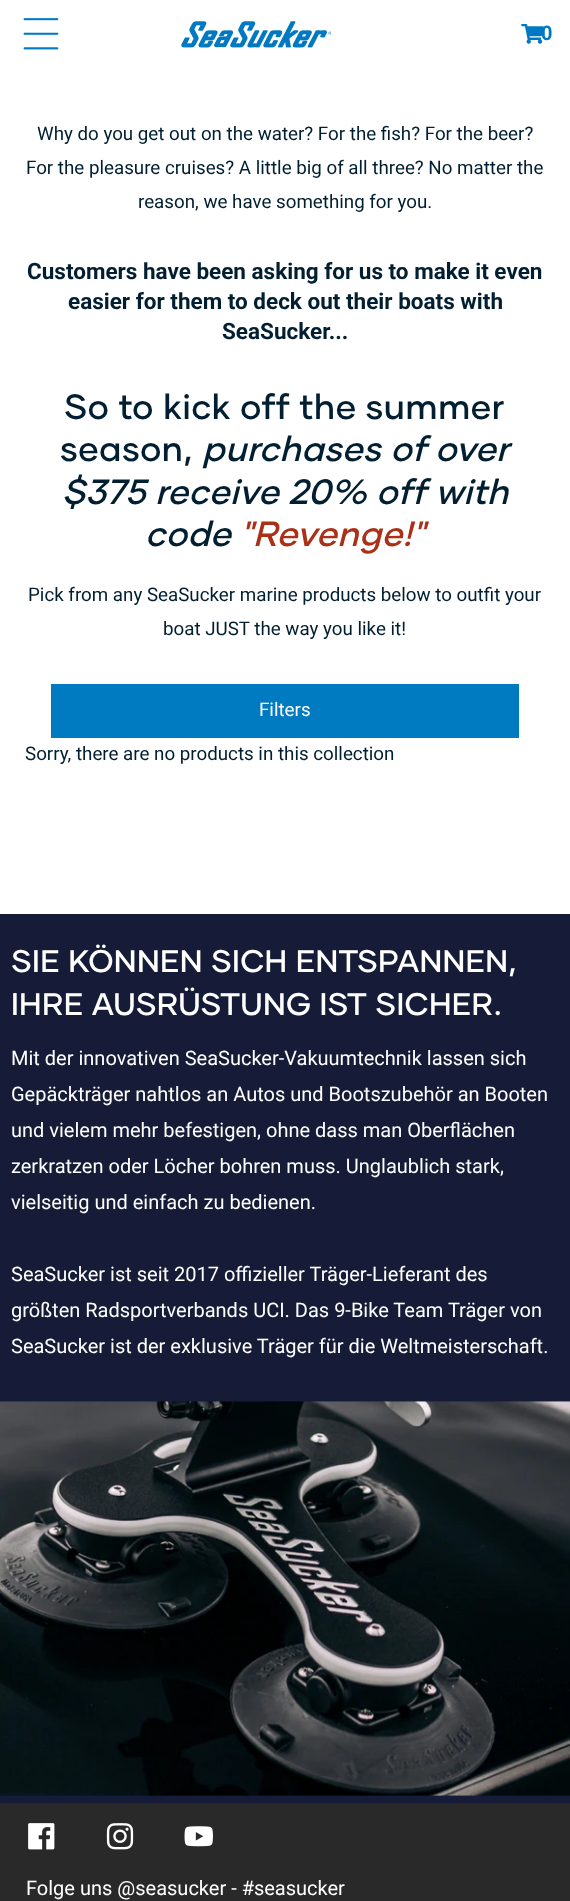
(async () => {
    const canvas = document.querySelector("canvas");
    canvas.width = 570;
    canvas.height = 1901;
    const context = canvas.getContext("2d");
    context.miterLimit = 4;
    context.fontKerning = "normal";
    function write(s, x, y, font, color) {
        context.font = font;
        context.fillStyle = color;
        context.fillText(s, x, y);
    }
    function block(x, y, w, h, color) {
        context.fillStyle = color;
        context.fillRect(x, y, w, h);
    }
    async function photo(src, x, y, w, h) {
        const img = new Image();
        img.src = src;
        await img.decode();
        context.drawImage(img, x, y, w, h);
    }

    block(0, 0, 570, 1901, "rgb(255, 255, 255)");
    await photo("media/1.png", 23, 18, 36, 32);
    await photo("media/2.png", 181, 21, 150, 27);
    await photo("media/3.png", 521, 24, 23, 20);
    write("0", 541, 40, "bold 20px Roboto", "rgb(0, 121, 194)");
    write("Why do you get out on the water? For the fish? For the beer?", 37, 140, "18.75px Roboto", "rgb(1, 31, 49)");
    write("For the pleasure cruises? A little big of all three? No matter the", 26, 174, "18.75px Roboto", "rgb(1, 31, 49)");
    write("reason, we have something for you.", 138, 208, "18.75px Roboto", "rgb(1, 31, 49)");
    write("Customers have been asking for us to make it even", 27, 279, "bold 22.5px Roboto", "rgb(1, 31, 49)");
    write("easier for them to deck out their boats with", 68, 309, "bold 22.5px Roboto", "rgb(1, 31, 49)");
    write("SeaSucker...", 222, 339, "bold 22.5px Roboto", "rgb(1, 31, 49)");
    context.letterSpacing = "0.3px";
    write("So to kick off the summer", 64, 419, "600 35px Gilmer", "rgb(1, 31, 49)");
    write("season,", 60, 461, "600 35px Gilmer", "rgb(1, 31, 49)");
    write("purchases of over", 202, 461, "italic 600 35px Gilmer", "rgb(1, 31, 49)");
    write("$375 receive 20% off with", 62, 504, "italic 600 35px Gilmer", "rgb(1, 31, 49)");
    write("code", 145, 546, "italic 600 35px Gilmer", "rgb(1, 31, 49)");
    write("\"Revenge!\"", 240, 546, "italic 600 35px Gilmer", "rgb(171, 48, 24)");
    context.letterSpacing = "0px";
    write("Pick from any SeaSucker marine products below to outfit your", 28, 601, "18.75px Roboto", "rgb(1, 31, 49)");
    write("boat JUST the way you like it!", 163, 635, "18.75px Roboto", "rgb(1, 31, 49)");
    block(51, 684, 468, 54, "rgb(0, 123, 194)");
    write("Filters", 259, 716, "18.75px Roboto", "rgb(255, 255, 255)");
    write("Sorry, there are no products in this collection", 25, 760, "18.75px Roboto", "rgb(1, 31, 49)");
    block(0, 914, 570, 889, "rgb(22, 28, 55)");
    context.letterSpacing = "0.3px";
    write("SIE KÖNNEN SICH ENTSPANNEN,", 11, 972, "600 31.25px Gilmer", "rgb(255, 255, 255)");
    write("IHRE AUSRÜSTUNG IST SICHER.", 11, 1015, "600 31.25px Gilmer", "rgb(255, 255, 255)");
    context.letterSpacing = "0px";
    write("Mit der innovativen SeaSucker-Vakuumtechnik lassen sich", 11, 1065, "20px Roboto", "rgb(255, 255, 255)");
    write("Gepäckträger nahtlos an Autos und Bootszubehör an Booten", 11, 1101, "20px Roboto", "rgb(255, 255, 255)");
    write("und vielem mehr befestigen, ohne dass man Oberflächen", 11, 1137, "20px Roboto", "rgb(255, 255, 255)");
    write("zerkratzen oder Löcher bohren muss. Unglaublich stark,", 11, 1173, "20px Roboto", "rgb(255, 255, 255)");
    write("vielseitig und einfach zu bedienen.", 11, 1209, "20px Roboto", "rgb(255, 255, 255)");
    write("SeaSucker ist seit 2017 offizieller Träger-Lieferant des", 11, 1281, "20px Roboto", "rgb(255, 255, 255)");
    write("größten Radsportverbands UCI. Das 9-Bike Team Träger von", 11, 1317, "20px Roboto", "rgb(255, 255, 255)");
    write("SeaSucker ist der exklusive Träger für die Weltmeisterschaft.", 11, 1353, "20px Roboto", "rgb(255, 255, 255)");
    await photo("media/4.png", 0, 1401, 570, 395);
    block(0, 1803, 570, 98, "rgb(42, 41, 41)");
    await photo("media/5.png", 28, 1823, 27, 27);
    await photo("media/6.png", 106, 1823, 28, 27);
    await photo("media/7.png", 184, 1826, 29, 21);
    write("Folge uns @seasucker - #seasucker", 26, 1895, "20px Roboto", "rgb(255, 255, 255)");
})();
